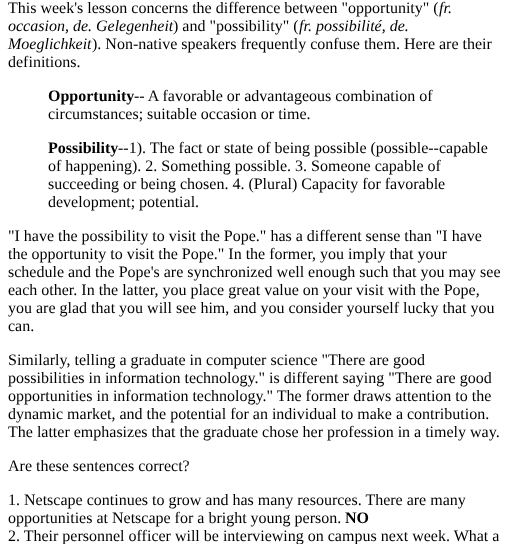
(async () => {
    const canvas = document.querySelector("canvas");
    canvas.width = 511;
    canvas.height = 544;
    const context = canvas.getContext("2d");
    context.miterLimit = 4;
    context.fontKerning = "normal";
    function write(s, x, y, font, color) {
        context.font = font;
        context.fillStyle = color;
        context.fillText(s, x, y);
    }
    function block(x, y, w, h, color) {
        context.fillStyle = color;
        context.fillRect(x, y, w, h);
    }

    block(0, 0, 511, 544, "rgb(255, 255, 255)");
    write("This week's lesson concerns the difference between \"opportunity\" (", 8, 13, "16px Liberation Serif", "rgb(0, 0, 0)");
    write("fr.", 439, 13, "italic 16px Liberation Serif", "rgb(0, 0, 0)");
    write("occasion, de. Gelegenheit", 8, 31, "italic 16px Liberation Serif", "rgb(0, 0, 0)");
    write(") and \"possibility\" (", 173, 31, "16px Liberation Serif", "rgb(0, 0, 0)");
    write("fr. possibilité, de.", 299, 31, "italic 16px Liberation Serif", "rgb(0, 0, 0)");
    write("Moeglichkeit", 8, 49, "italic 16px Liberation Serif", "rgb(0, 0, 0)");
    write("). Non-native speakers frequently confuse them. Here are their", 92, 49, "16px Liberation Serif", "rgb(0, 0, 0)");
    write("definitions.", 8, 67, "16px Liberation Serif", "rgb(0, 0, 0)");
    write("Opportunity", 48, 101, "bold 16px Liberation Serif", "rgb(0, 0, 0)");
    write("-- A favorable or advantageous combination of", 134, 101, "16px Liberation Serif", "rgb(0, 0, 0)");
    write("circumstances; suitable occasion or time.", 48, 119, "16px Liberation Serif", "rgb(0, 0, 0)");
    write("Possibility", 48, 153, "bold 16px Liberation Serif", "rgb(0, 0, 0)");
    write("--1). The fact or state of being possible (possible--capable", 118, 153, "16px Liberation Serif", "rgb(0, 0, 0)");
    write("of happening). 2. Something possible. 3. Someone capable of", 48, 171, "16px Liberation Serif", "rgb(0, 0, 0)");
    write("succeeding or being chosen. 4. (Plural) Capacity for favorable", 48, 189, "16px Liberation Serif", "rgb(0, 0, 0)");
    write("development; potential.", 48, 207, "16px Liberation Serif", "rgb(0, 0, 0)");
    write("\"I have the possibility to visit the Pope.\" has a different sense than \"I have", 8, 241, "16px Liberation Serif", "rgb(0, 0, 0)");
    write("the opportunity to visit the Pope.\" In the former, you imply that your", 8, 259, "16px Liberation Serif", "rgb(0, 0, 0)");
    write("schedule and the Pope's are synchronized well enough such that you may see", 8, 277, "16px Liberation Serif", "rgb(0, 0, 0)");
    write("each other. In the latter, you place great value on your visit with the Pope,", 8, 295, "16px Liberation Serif", "rgb(0, 0, 0)");
    write("you are glad that you will see him, and you consider yourself lucky that you", 8, 313, "16px Liberation Serif", "rgb(0, 0, 0)");
    write("can.", 8, 331, "16px Liberation Serif", "rgb(0, 0, 0)");
    write("Similarly, telling a graduate in computer science \"There are good", 8, 365, "16px Liberation Serif", "rgb(0, 0, 0)");
    write("possibilities in information technology.\" is different saying \"There are good", 8, 383, "16px Liberation Serif", "rgb(0, 0, 0)");
    write("opportunities in information technology.\" The former draws attention to the", 8, 401, "16px Liberation Serif", "rgb(0, 0, 0)");
    write("dynamic market, and the potential for an individual to make a contribution.", 8, 419, "16px Liberation Serif", "rgb(0, 0, 0)");
    write("The latter emphasizes that the graduate chose her profession in a timely way.", 8, 437, "16px Liberation Serif", "rgb(0, 0, 0)");
    write("Are these sentences correct?", 8, 471, "16px Liberation Serif", "rgb(0, 0, 0)");
    write("1. Netscape continues to grow and has many resources. There are many", 8, 505, "16px Liberation Serif", "rgb(0, 0, 0)");
    write("opportunities at Netscape for a bright young person.", 8, 523, "16px Liberation Serif", "rgb(0, 0, 0)");
    write("NO", 345, 523, "bold 16px Liberation Serif", "rgb(0, 0, 0)");
    write("2. Their personnel officer will be interviewing on campus next week. What a", 8, 541, "16px Liberation Serif", "rgb(0, 0, 0)");
})();
